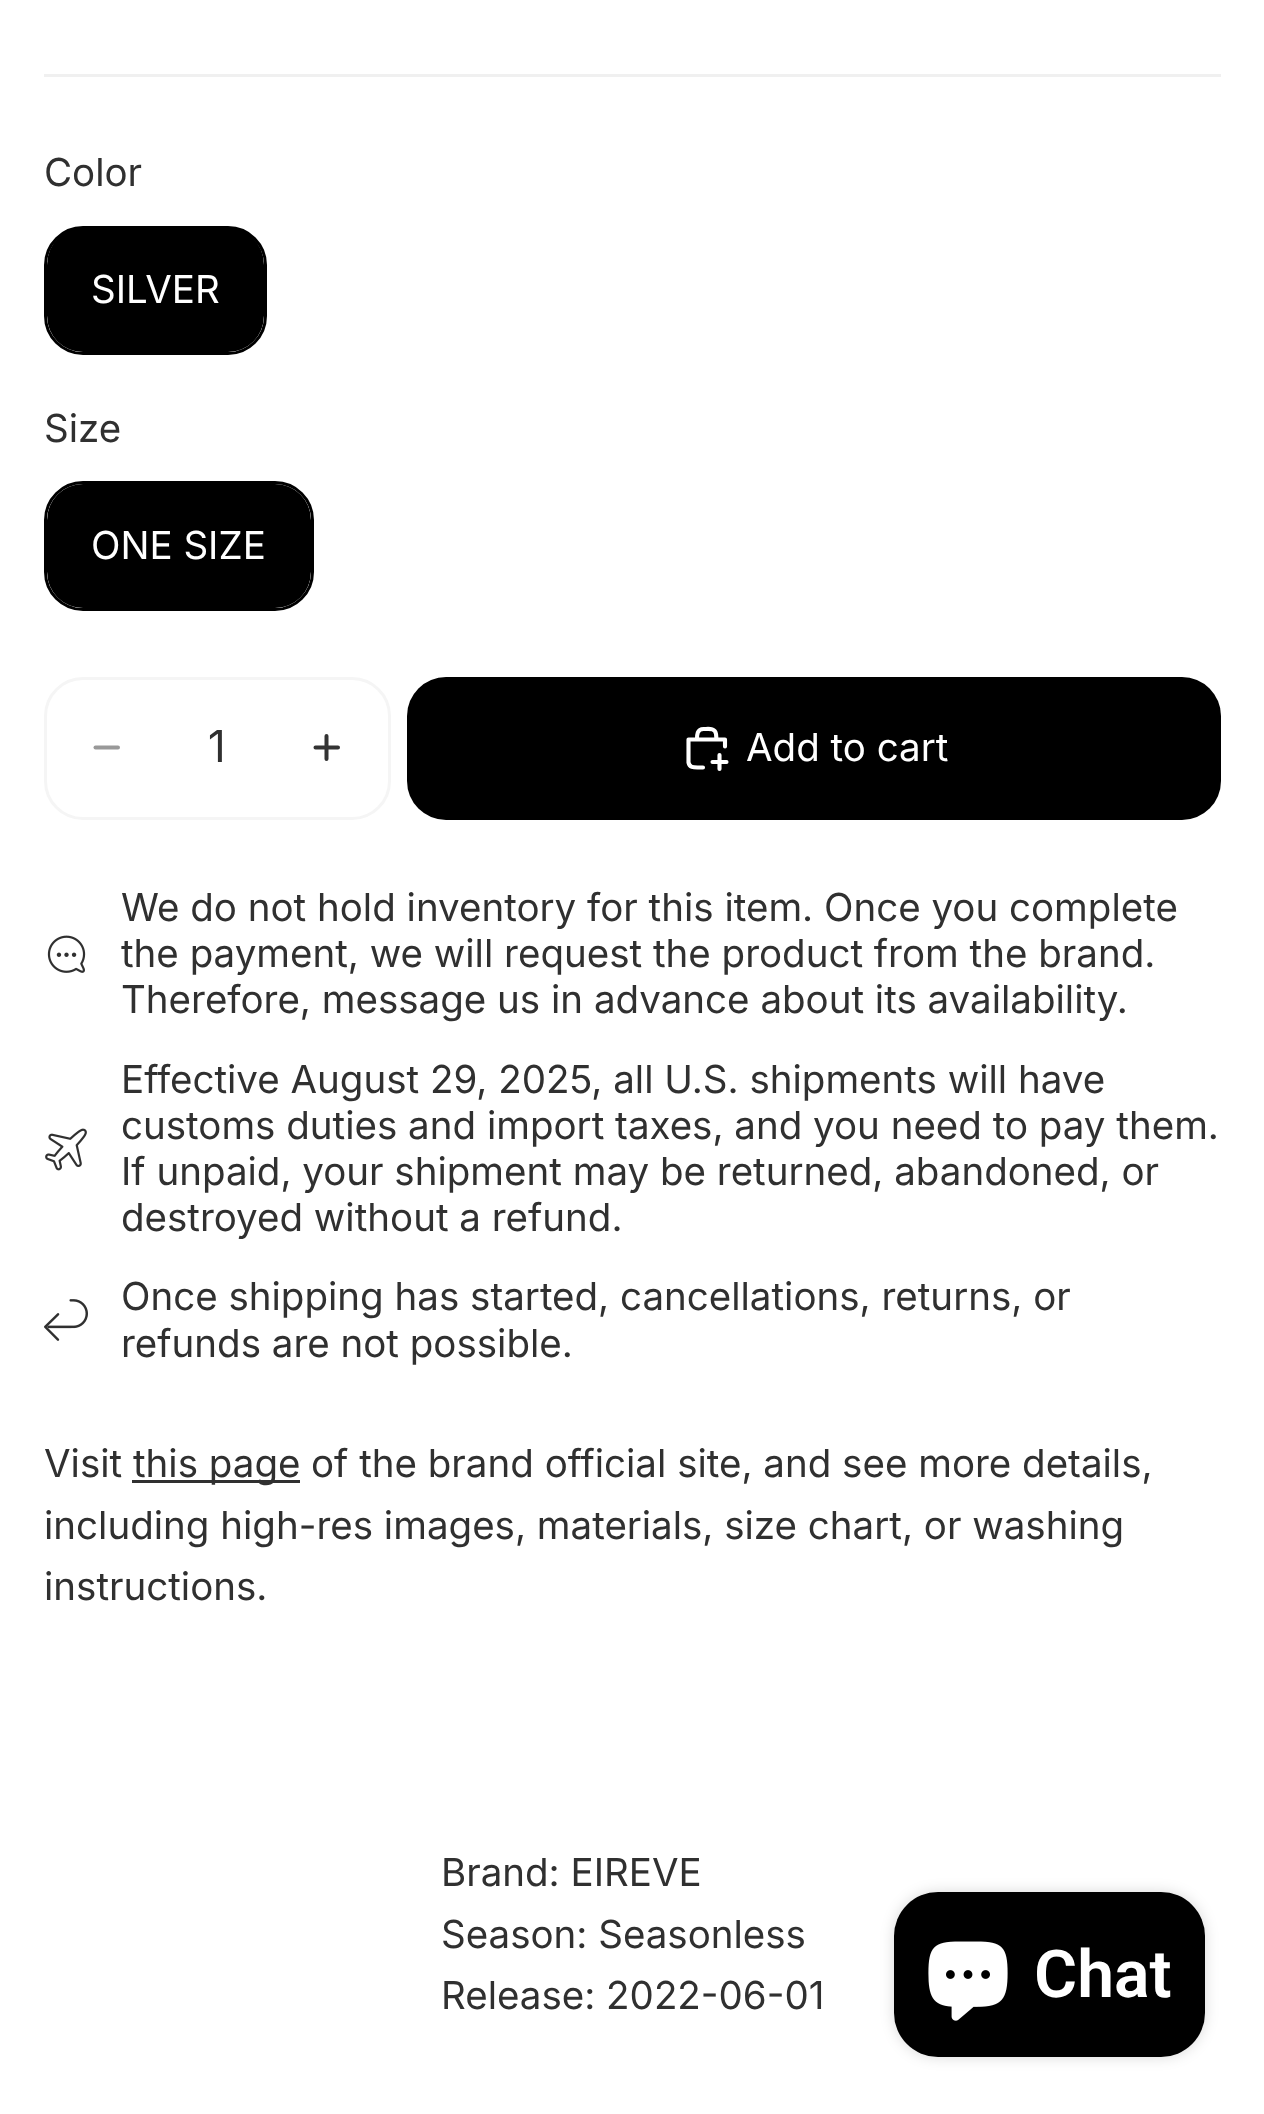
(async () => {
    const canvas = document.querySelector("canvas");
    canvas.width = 1264;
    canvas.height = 2114;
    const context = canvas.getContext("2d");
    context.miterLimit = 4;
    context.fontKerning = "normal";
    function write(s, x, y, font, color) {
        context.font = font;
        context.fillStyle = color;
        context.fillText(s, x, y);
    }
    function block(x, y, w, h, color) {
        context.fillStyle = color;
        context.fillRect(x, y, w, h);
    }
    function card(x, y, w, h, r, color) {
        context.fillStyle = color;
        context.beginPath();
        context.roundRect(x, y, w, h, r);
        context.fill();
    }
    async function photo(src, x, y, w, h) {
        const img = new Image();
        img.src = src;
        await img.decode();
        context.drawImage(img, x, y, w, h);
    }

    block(0, 0, 1264, 2114, "rgb(255, 255, 255)");
    context.fillStyle = "rgb(240, 240, 240)";
    context.beginPath();
    context.moveTo(1221, 74);
    context.lineTo(1221, 77);
    context.lineTo(1218, 74);
    context.closePath();
    context.fill();
    context.fillStyle = "rgba(0, 0, 0, 0.06)";
    context.beginPath();
    context.moveTo(1221, 77);
    context.lineTo(44, 77);
    context.lineTo(44, 74);
    context.lineTo(1218, 74);
    context.closePath();
    context.fill();
    write("Color", 44, 186, "38.5px Inter", "rgb(48, 48, 48)");
    context.beginPath();
    context.roundRect(45.5, 227.5, 220, 126, 37.5);
    context.strokeStyle = "rgb(0, 0, 0)";
    context.lineWidth = 3;
    context.stroke();
    context.save();
    context.beginPath();
    context.roundRect(47, 228, 217, 124, 36);
    context.clip();
    card(47, 226, 217, 129, 39, "rgb(0, 0, 0)");
    context.restore();
    context.fillStyle = "rgb(0, 0, 0)";
    context.beginPath();
    context.moveTo(83, 229);
    context.lineTo(228, 229);
    context.bezierCurveTo(248, 229, 264, 245, 264, 265);
    context.lineTo(264, 264);
    context.bezierCurveTo(264, 244, 248, 228, 228, 228);
    context.lineTo(83, 228);
    context.bezierCurveTo(63, 228, 47, 244, 47, 264);
    context.lineTo(47, 265);
    context.bezierCurveTo(47, 245, 63, 229, 83, 229);
    context.closePath();
    context.fill();
    write("SILVER", 91, 303, "38.5px Inter", "rgb(255, 255, 255)");
    write("Size", 44, 442, "38.5px Inter", "rgb(48, 48, 48)");
    context.beginPath();
    context.roundRect(45.5, 482.5, 267, 127, 37.5);
    context.stroke();
    context.save();
    context.beginPath();
    context.roundRect(47, 484, 264, 124, 36);
    context.clip();
    card(47, 481, 264, 130, 39, "rgb(0, 0, 0)");
    context.restore();
    write("ONE SIZE", 91, 559, "38.5px Inter", "rgb(255, 255, 255)");
    context.beginPath();
    context.roundRect(45.5, 678.5, 344, 140, 37.5);
    context.strokeStyle = "rgb(245, 245, 245)";
    context.stroke();
    context.beginPath();
    context.moveTo(95.5, 747.5);
    context.lineTo(118, 747.5);
    context.strokeStyle = "rgb(153, 153, 153)";
    context.lineWidth = 4;
    context.lineCap = "round";
    context.stroke();
    write("1", 208, 762, "44px 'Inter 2'", "rgb(48, 48, 48)");
    context.beginPath();
    context.moveTo(315.5, 747.5);
    context.lineTo(338, 747.5);
    context.moveTo(326.5, 736);
    context.lineTo(326.5, 759);
    context.strokeStyle = "rgb(51, 51, 51)";
    context.stroke();
    card(407, 677, 814, 143, 39, "rgb(0, 0, 0)");
    context.beginPath();
    context.moveTo(725, 746.5);
    context.lineTo(725, 739.5);
    context.lineTo(688.5, 739.5);
    context.lineTo(688.5, 762.5);
    context.bezierCurveTo(689.5, 767.5, 693.5, 767.5, 697.5, 767.5);
    context.lineTo(703, 767.5);
    context.moveTo(703.5, 729);
    context.bezierCurveTo(708.5, 729, 715, 727.5, 716, 734);
    context.lineTo(716.5, 739.5);
    context.lineTo(697, 739.5);
    context.bezierCurveTo(697, 735, 697, 729, 703.5, 729);
    context.strokeStyle = "rgb(255, 255, 255)";
    context.lineWidth = 4.1;
    context.lineJoin = "round";
    context.stroke();
    context.beginPath();
    context.moveTo(719.5, 755);
    context.lineTo(719.5, 769);
    context.moveTo(726.5, 762);
    context.lineTo(712.5, 762);
    context.lineJoin = "miter";
    context.stroke();
    write("Add to cart", 746, 761, "38.5px Inter", "rgb(255, 255, 255)");
    await photo("media/1.png", 47, 935, 39, 38);
    write("We do not hold inventory for this item. Once you complete", 121, 921, "38.5px Inter", "rgb(48, 48, 48)");
    write("the payment, we will request the product from the brand.", 121, 967, "38.5px Inter", "rgb(48, 48, 48)");
    write("Therefore, message us in advance about its availability.", 121, 1013, "38.5px Inter", "rgb(48, 48, 48)");
    await photo("media/2.png", 45, 1128, 42, 43);
    write("Effective August 29, 2025, all U.S. shipments will have", 121, 1093, "38.5px Inter", "rgb(48, 48, 48)");
    write("customs duties and import taxes, and you need to pay them.", 121, 1139, "38.5px Inter", "rgb(48, 48, 48)");
    write("If unpaid, your shipment may be returned, abandoned, or", 121, 1185, "38.5px Inter", "rgb(48, 48, 48)");
    write("destroyed without a refund.", 121, 1231, "38.5px Inter", "rgb(48, 48, 48)");
    await photo("media/3.png", 44, 1299, 44, 42);
    write("Once shipping has started, cancellations, returns, or", 121, 1310, "38.5px Inter", "rgb(48, 48, 48)");
    write("refunds are not possible.", 121, 1357, "38.5px Inter", "rgb(48, 48, 48)");
    write("Visit", 44, 1477, "38.5px Inter", "rgb(48, 48, 48)");
    block(132, 1480, 168, 3, "rgb(48, 48, 48)");
    write("this page", 133, 1477, "38.5px Inter", "rgb(48, 48, 48)");
    write("of the brand official site, and see more details,", 311, 1477, "38.5px Inter", "rgb(48, 48, 48)");
    write("including high-res images, materials, size chart, or washing", 44, 1539, "38.5px Inter", "rgb(48, 48, 48)");
    write("instructions.", 44, 1600, "38.5px Inter", "rgb(48, 48, 48)");
    write("Brand: EIREVE", 441, 1886, "38.5px Inter", "rgb(48, 48, 48)");
    write("Season: Seasonless", 441, 1948, "38.5px Inter", "rgb(48, 48, 48)");
    write("Release: 2022-06-01", 441, 2009, "38.5px Inter", "rgb(48, 48, 48)");
    context.fillStyle = "rgba(0, 0, 0, 0.15)";
    context.filter = "blur(7px)";
    context.beginPath();
    context.roundRect(894, 1892, 311, 165, 44);
    context.fill();
    context.filter = "none";
    card(894, 1892, 311, 165, 44, "rgb(0, 0, 0)");
    await photo("media/4.png", 928, 1941, 80, 80);
    write("Chat", 1034, 1997, "600 66px Roboto", "rgb(255, 255, 255)");
})();
